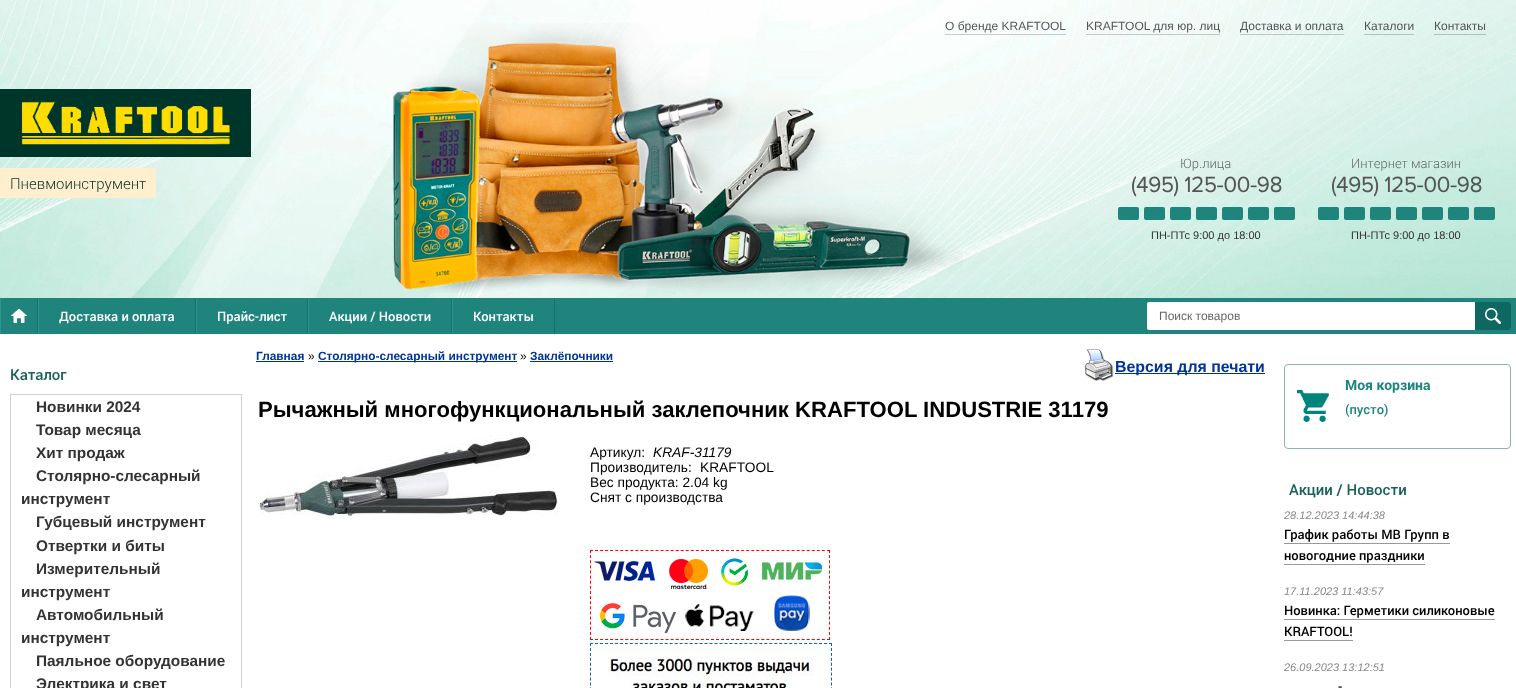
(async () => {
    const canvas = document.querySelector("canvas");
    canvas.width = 1516;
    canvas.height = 688;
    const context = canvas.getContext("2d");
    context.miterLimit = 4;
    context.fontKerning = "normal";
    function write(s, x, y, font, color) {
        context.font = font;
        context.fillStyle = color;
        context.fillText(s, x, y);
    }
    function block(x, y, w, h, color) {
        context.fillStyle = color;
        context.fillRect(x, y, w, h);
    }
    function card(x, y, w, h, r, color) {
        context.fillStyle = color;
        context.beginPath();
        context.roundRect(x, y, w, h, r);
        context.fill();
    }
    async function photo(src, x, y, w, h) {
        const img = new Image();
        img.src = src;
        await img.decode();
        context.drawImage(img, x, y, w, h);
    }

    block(0, 0, 1516, 688, "rgb(31, 132, 124)");
    await photo("media/1.png", 0, 0, 1516, 298);
    await photo("media/2.png", 0, 89, 251, 68);
    await photo("media/3.png", 393, 23, 570, 270);
    block(945, 34, 121, 1, "rgba(0, 0, 0, 0.2)");
    write("О бренде KRAFTOOL", 945, 30, "12px Liberation Sans", "rgb(85, 85, 85)");
    block(1086, 34, 134, 1, "rgba(0, 0, 0, 0.2)");
    write("KRAFTOOL для юр. лиц", 1086, 30, "12px Liberation Sans", "rgb(85, 85, 85)");
    block(1240, 34, 104, 1, "rgba(0, 0, 0, 0.2)");
    write("Доставка и оплата", 1240, 30, "12px Liberation Sans", "rgb(85, 85, 85)");
    block(1364, 34, 50, 1, "rgba(0, 0, 0, 0.2)");
    write("Каталоги", 1364, 30, "12px Liberation Sans", "rgb(85, 85, 85)");
    block(1434, 34, 52, 1, "rgba(0, 0, 0, 0.2)");
    write("Контакты", 1434, 30, "12px Liberation Sans", "rgb(85, 85, 85)");
    block(0, 168, 156, 30, "rgb(255, 239, 206)");
    write("Пневмоинструмент", 10, 189, "300 15px Roboto", "rgb(4, 51, 41)");
    write("Юр.лица", 1180, 168, "300 13px Roboto", "rgb(102, 102, 102)");
    write("(495) 125-00-98", 1131, 192, "bold 22px Proxima Nova", "rgb(85, 85, 85)");
    card(1118, 207, 21, 13, 2, "rgb(31, 132, 124)");
    card(1144, 207, 21, 13, 2, "rgb(31, 132, 124)");
    card(1170, 207, 21, 13, 2, "rgb(31, 132, 124)");
    card(1196, 207, 21, 13, 2, "rgb(31, 132, 124)");
    card(1222, 207, 21, 13, 2, "rgb(31, 132, 124)");
    card(1248, 207, 21, 13, 2, "rgb(31, 132, 124)");
    card(1274, 207, 21, 13, 2, "rgb(31, 132, 124)");
    write("ПН-ПТс 9:00 до 18:00", 1151, 239, "11px Liberation Sans", "rgb(51, 51, 51)");
    write("Интернет магазин", 1351, 168, "300 13px Roboto", "rgb(102, 102, 102)");
    write("(495) 125-00-98", 1331, 192, "bold 22px Proxima Nova", "rgb(85, 85, 85)");
    card(1318, 207, 21, 13, 2, "rgb(31, 132, 124)");
    card(1344, 207, 21, 13, 2, "rgb(31, 132, 124)");
    card(1370, 207, 21, 13, 2, "rgb(31, 132, 124)");
    card(1396, 207, 21, 13, 2, "rgb(31, 132, 124)");
    card(1422, 207, 21, 13, 2, "rgb(31, 132, 124)");
    card(1448, 207, 21, 13, 2, "rgb(31, 132, 124)");
    card(1474, 207, 21, 13, 2, "rgb(31, 132, 124)");
    write("ПН-ПТс 9:00 до 18:00", 1351, 239, "11px Liberation Sans", "rgb(51, 51, 51)");
    context.fillStyle = "rgb(255, 255, 255)";
    context.beginPath();
    context.roundRect(1147, 302, 364, 28, [2, 3, 3, 2]);
    context.fill();
    write("Поиск товаров", 1159, 320, "12px Liberation Sans", "rgb(102, 102, 102)");
    context.fillStyle = "rgb(14, 103, 96)";
    context.beginPath();
    context.roundRect(1475, 302, 36, 28, [0, 2, 2, 0]);
    context.fill();
    await photo("media/4.png", 1485, 308, 16, 16);
    block(37, 298, 1, 36, "rgb(21, 115, 108)");
    block(0, 298, 1, 36, "rgb(44, 150, 142)");
    await photo("media/5.png", 11, 309, 16, 14);
    block(195, 298, 1, 36, "rgb(21, 115, 108)");
    block(38, 298, 1, 36, "rgb(44, 150, 142)");
    write("Доставка и оплата", 59, 321, "500 13px Roboto", "rgb(255, 255, 255)");
    block(307, 298, 1, 36, "rgb(21, 115, 108)");
    block(196, 298, 1, 36, "rgb(44, 150, 142)");
    write("Прайс-лист", 217, 321, "500 13px Roboto", "rgb(255, 255, 255)");
    block(451, 298, 1, 36, "rgb(21, 115, 108)");
    block(308, 298, 1, 36, "rgb(44, 150, 142)");
    write("Акции / Новости", 329, 321, "500 13px Roboto", "rgb(255, 255, 255)");
    block(554, 298, 1, 36, "rgb(21, 115, 108)");
    block(452, 298, 1, 36, "rgb(44, 150, 142)");
    write("Контакты", 473, 321, "500 13px Roboto", "rgb(255, 255, 255)");
    block(0, 334, 1516, 354, "rgb(255, 255, 255)");
    write("Каталог", 10, 380, "500 15px Roboto", "rgb(25, 97, 91)");
    context.strokeStyle = "rgb(207, 210, 207)";
    context.strokeRect(10.5, 394.5, 231, 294);
    write("Новинки 2024", 36, 412, "bold 15.4px Liberation Sans", "rgb(51, 51, 51)");
    write("Товар месяца", 36, 435, "bold 15.4px Liberation Sans", "rgb(51, 51, 51)");
    write("Хит продаж", 36, 458, "bold 15.4px Liberation Sans", "rgb(51, 51, 51)");
    write("Столярно-слесарный", 36, 481, "bold 15.4px Liberation Sans", "rgb(51, 51, 51)");
    write("инструмент", 21, 504, "bold 15.4px Liberation Sans", "rgb(51, 51, 51)");
    write("Губцевый инструмент", 36, 527, "bold 15.4px Liberation Sans", "rgb(51, 51, 51)");
    write("Отвертки и биты", 36, 551, "bold 15.4px Liberation Sans", "rgb(51, 51, 51)");
    write("Измерительный", 36, 574, "bold 15.4px Liberation Sans", "rgb(51, 51, 51)");
    write("инструмент", 21, 597, "bold 15.4px Liberation Sans", "rgb(51, 51, 51)");
    write("Автомобильный", 36, 620, "bold 15.4px Liberation Sans", "rgb(51, 51, 51)");
    write("инструмент", 21, 643, "bold 15.4px Liberation Sans", "rgb(51, 51, 51)");
    write("Паяльное оборудование", 36, 666, "bold 15.4px Liberation Sans", "rgb(51, 51, 51)");
    write("Электрика и свет", 36, 689, "bold 15.4px Liberation Sans", "rgb(51, 51, 51)");
    write("Главная", 256, 360, "bold 11.9px Liberation Sans", "rgb(0, 51, 153)");
    block(256, 361, 48, 1, "rgb(0, 51, 153)");
    write("»", 308, 360, "11.9px Liberation Sans", "rgb(0, 0, 0)");
    block(318, 361, 199, 1, "rgb(0, 51, 153)");
    write("Столярно-слесарный инструмент", 318, 360, "bold 11.9px Liberation Sans", "rgb(0, 51, 153)");
    write("»", 520, 360, "11.9px Liberation Sans", "rgb(0, 0, 0)");
    write("Заклёпочники", 530, 360, "bold 11.9px Liberation Sans", "rgb(0, 51, 153)");
    block(530, 361, 83, 1, "rgb(0, 51, 153)");
    await photo("media/6.png", 1085, 349, 29, 32);
    block(1115, 373, 150, 1, "rgb(0, 51, 153)");
    write("Версия для печати", 1115, 372, "bold 15.9px Liberation Sans", "rgb(0, 51, 153)");
    write("Рычажный многофункциональный заклепочник KRAFTOOL INDUSTRIE 31179", 258, 417, "bold 22.1px Liberation Sans", "rgb(0, 0, 0)");
    await photo("media/7.png", 258, 435, 300, 81);
    write("Артикул:", 590, 457, "13.75px Liberation Sans", "rgb(0, 0, 0)");
    write("KRAF-31179", 653, 457, "italic 13.75px Liberation Sans", "rgb(0, 0, 0)");
    write("Производитель:", 590, 472, "13.75px Liberation Sans", "rgb(0, 0, 0)");
    write("KRAFTOOL", 700, 472, "13.75px Liberation Sans", "rgb(0, 0, 0)");
    write("Вес продукта: 2.04 kg", 590, 487, "13.75px Liberation Sans", "rgb(0, 0, 0)");
    write("Снят с производства", 590, 502, "13.75px Liberation Sans", "rgb(0, 0, 0)");
    context.beginPath();
    context.moveTo(590, 550.5);
    context.lineTo(830, 550.5);
    context.strokeStyle = "rgb(255, 0, 0)";
    context.setLineDash([3, 2.04]);
    context.stroke();
    context.beginPath();
    context.moveTo(829.5, 550);
    context.lineTo(829.5, 640);
    context.setLineDash([3, 2.12]);
    context.stroke();
    context.beginPath();
    context.moveTo(590, 639.5);
    context.lineTo(830, 639.5);
    context.setLineDash([3, 2.04]);
    context.stroke();
    context.beginPath();
    context.moveTo(590.5, 550);
    context.lineTo(590.5, 640);
    context.setLineDash([3, 2.12]);
    context.stroke();
    await photo("media/8.png", 592, 558, 230, 75);
    context.beginPath();
    context.moveTo(590, 643.5);
    context.lineTo(832, 643.5);
    context.strokeStyle = "rgb(0, 104, 179)";
    context.setLineDash([3, 1.98]);
    context.stroke();
    context.beginPath();
    context.moveTo(590.5, 643);
    context.lineTo(590.5, 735);
    context.setLineDash([3, 1.94]);
    context.stroke();
    await photo("media/9.png", 607, 653, 208, 35);
    context.beginPath();
    context.moveTo(831.5, 643);
    context.lineTo(831.5, 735);
    context.stroke();
    await photo("media/10.png", 1297, 390, 32, 32);
    context.beginPath();
    context.roundRect(1284.5, 364.5, 226, 84, 3.5);
    context.strokeStyle = "rgb(140, 178, 175)";
    context.setLineDash([]);
    context.stroke();
    write("Моя корзина", 1345, 390, "bold 14px Roboto", "rgb(31, 132, 124)");
    write("(пусто)", 1345, 414, "500 13px Roboto", "rgb(31, 132, 124)");
    write("Акции / Новости", 1289, 495, "500 15px Roboto", "rgb(25, 97, 91)");
    write("28.12.2023 14:44:38", 1284, 519, "italic 11px Liberation Sans", "rgb(136, 136, 136)");
    write("График работы МВ Групп в", 1284, 539, "500 13px Roboto", "rgb(0, 0, 0)");
    block(1284, 543, 166, 1, "rgb(153, 153, 153)");
    write("новогодние праздники", 1284, 560, "500 13px Roboto", "rgb(0, 0, 0)");
    block(1284, 564, 141, 1, "rgb(153, 153, 153)");
    write("17.11.2023 11:43:57", 1284, 595, "italic 11px Liberation Sans", "rgb(136, 136, 136)");
    write("Новинка: Герметики силиконовые", 1284, 615, "500 13px Roboto", "rgb(0, 0, 0)");
    block(1284, 619, 211, 1, "rgb(153, 153, 153)");
    write("KRAFTOOL!", 1284, 636, "500 13px Roboto", "rgb(0, 0, 0)");
    block(1284, 640, 69, 1, "rgb(153, 153, 153)");
    write("26.09.2023 13:12:51", 1284, 671, "italic 11px Liberation Sans", "rgb(136, 136, 136)");
    write("-", 1338, 691, "500 13px Roboto", "rgb(0, 0, 0)");
})();
